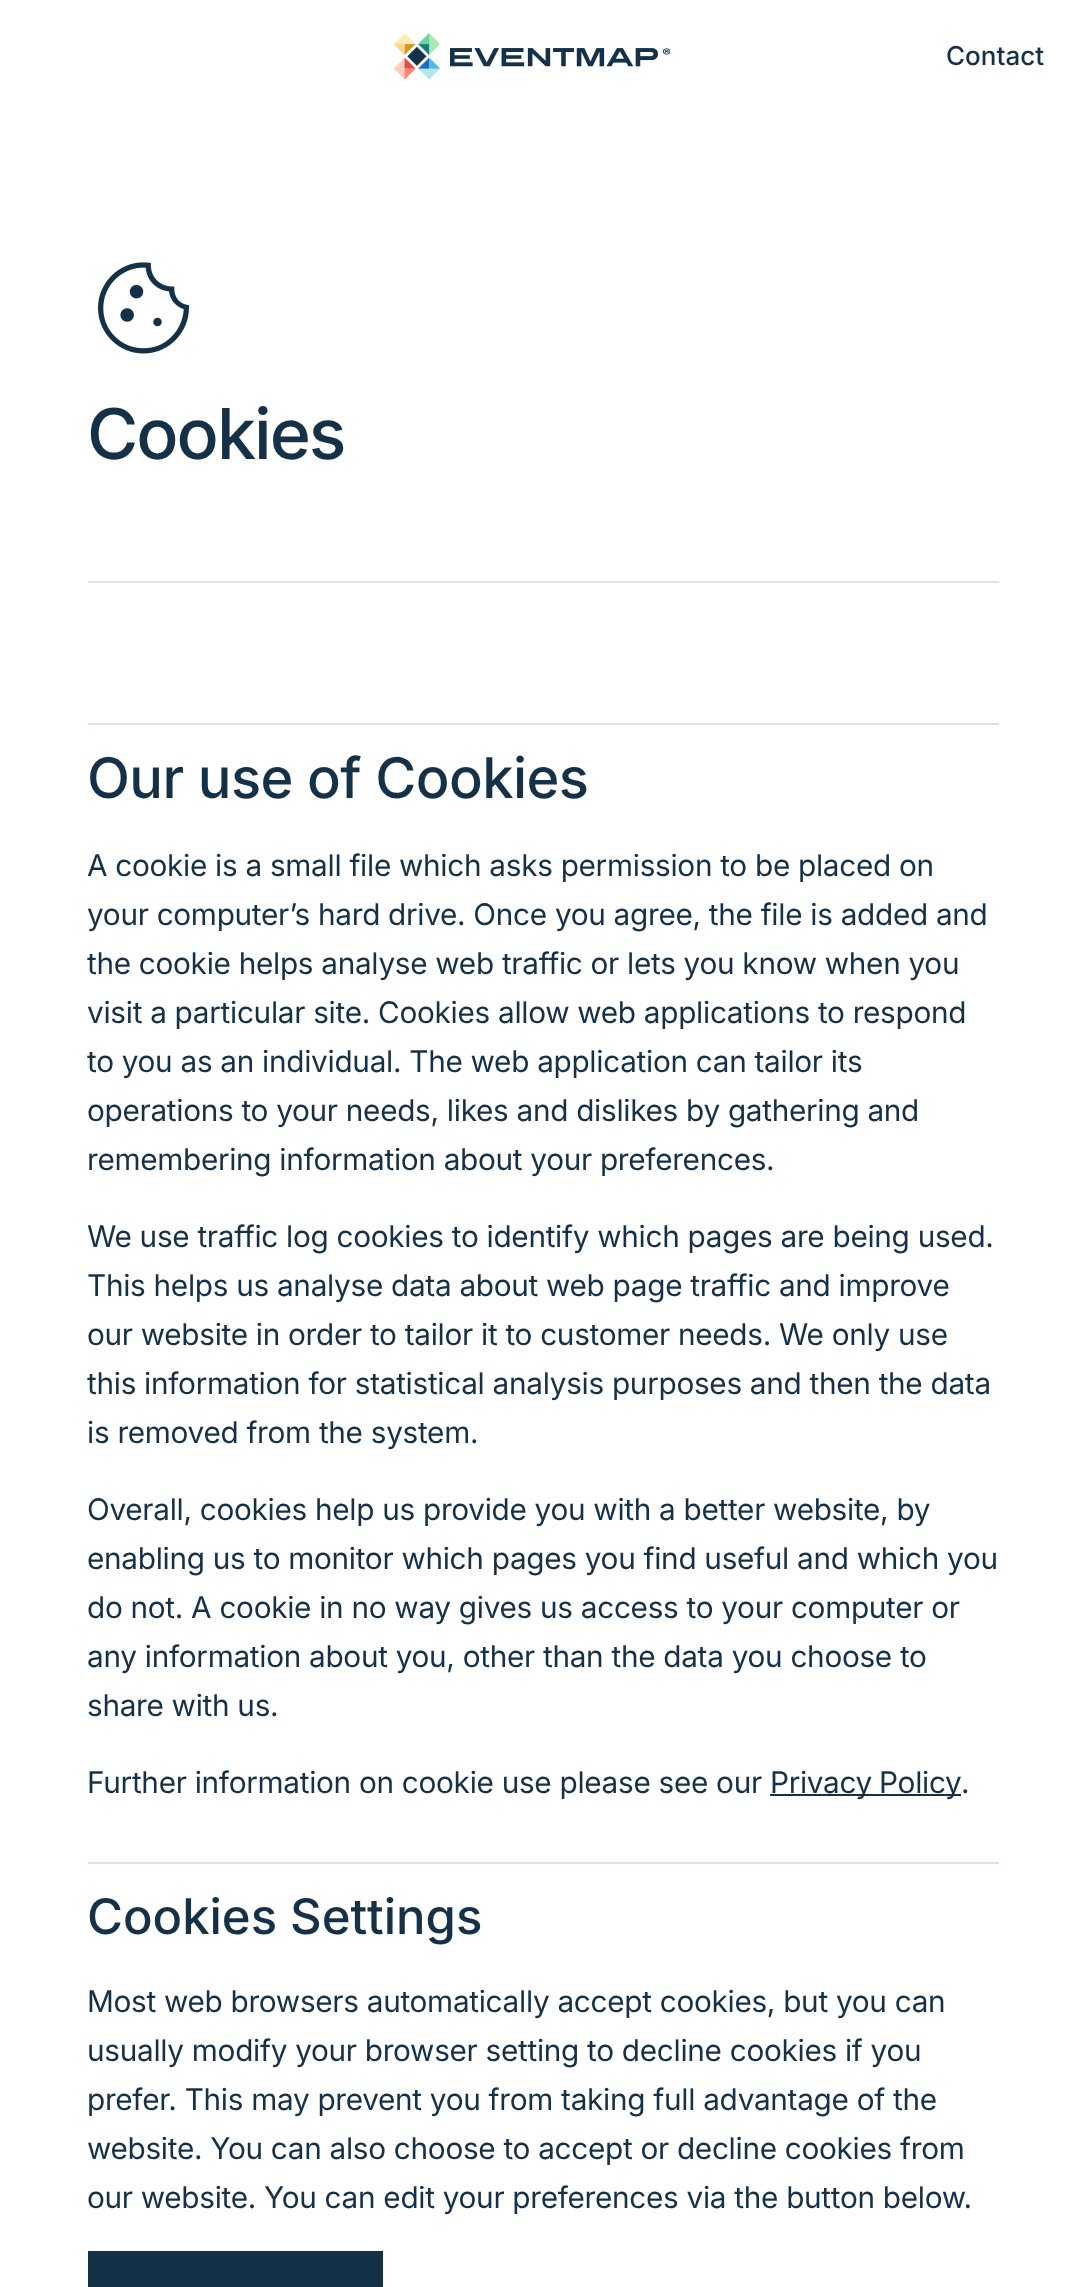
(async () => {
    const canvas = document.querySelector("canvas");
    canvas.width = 1086;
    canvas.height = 2287;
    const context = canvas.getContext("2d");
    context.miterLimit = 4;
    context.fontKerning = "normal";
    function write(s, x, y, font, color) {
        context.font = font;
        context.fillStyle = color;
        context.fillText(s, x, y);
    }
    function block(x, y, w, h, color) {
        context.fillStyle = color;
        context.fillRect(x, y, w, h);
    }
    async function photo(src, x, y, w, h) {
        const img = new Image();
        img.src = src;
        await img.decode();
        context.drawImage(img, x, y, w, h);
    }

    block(0, 0, 1086, 2287, "rgb(255, 255, 255)");
    await photo("media/1.png", 393, 33, 277, 47);
    write("Contact", 946, 65, "500 26px Inter", "rgb(21, 49, 71)");
    await photo("media/2.png", 98, 262, 91, 92);
    context.letterSpacing = "-2px";
    write("Cookies", 87, 459, "500 70px Inter", "rgb(21, 49, 71)");
    block(88, 581, 911, 2, "rgb(221, 229, 235)");
    block(88, 723, 911, 2, "rgb(216, 225, 237)");
    context.letterSpacing = "-0.6px";
    write("Our use of Cookies", 87, 798, "500 56px Inter", "rgb(21, 49, 71)");
    context.letterSpacing = "-0.3px";
    write("A cookie is a small file which asks permission to be placed on", 87, 876, "29.75px Inter", "rgb(21, 49, 71)");
    write("your computer’s hard drive. Once you agree, the file is added and", 87, 925, "29.75px Inter", "rgb(21, 49, 71)");
    write("the cookie helps analyse web traffic or lets you know when you", 87, 974, "29.75px Inter", "rgb(21, 49, 71)");
    write("visit a particular site. Cookies allow web applications to respond", 87, 1023, "29.75px Inter", "rgb(21, 49, 71)");
    write("to you as an individual. The web application can tailor its", 87, 1072, "29.75px Inter", "rgb(21, 49, 71)");
    write("operations to your needs, likes and dislikes by gathering and", 87, 1121, "29.75px Inter", "rgb(21, 49, 71)");
    write("remembering information about your preferences.", 87, 1170, "29.75px Inter", "rgb(21, 49, 71)");
    write("We use traffic log cookies to identify which pages are being used.", 87, 1247, "29.75px Inter", "rgb(21, 49, 71)");
    write("This helps us analyse data about web page traffic and improve", 87, 1296, "29.75px Inter", "rgb(21, 49, 71)");
    write("our website in order to tailor it to customer needs. We only use", 87, 1345, "29.75px Inter", "rgb(21, 49, 71)");
    write("this information for statistical analysis purposes and then the data", 87, 1394, "29.75px Inter", "rgb(21, 49, 71)");
    write("is removed from the system.", 87, 1443, "29.75px Inter", "rgb(21, 49, 71)");
    write("Overall, cookies help us provide you with a better website, by", 87, 1520, "29.75px Inter", "rgb(21, 49, 71)");
    write("enabling us to monitor which pages you find useful and which you", 87, 1569, "29.75px Inter", "rgb(21, 49, 71)");
    write("do not. A cookie in no way gives us access to your computer or", 87, 1618, "29.75px Inter", "rgb(21, 49, 71)");
    write("any information about you, other than the data you choose to", 87, 1667, "29.75px Inter", "rgb(21, 49, 71)");
    write("share with us.", 87, 1716, "29.75px Inter", "rgb(21, 49, 71)");
    write("Further information on cookie use please see our", 87, 1793, "29.75px Inter", "rgb(21, 49, 71)");
    block(770, 1794, 191, 2, "rgb(21, 49, 71)");
    context.wordSpacing = "-1px";
    write("Privacy Policy", 770, 1793, "29.75px Inter", "rgb(21, 49, 71)");
    context.wordSpacing = "0px";
    write(".", 961, 1793, "29.75px Inter", "rgb(21, 49, 71)");
    block(88, 1862, 911, 2, "rgb(216, 225, 237)");
    context.letterSpacing = "0px";
    write("Cookies Settings", 87, 1934, "500 49px Inter", "rgb(21, 49, 71)");
    context.letterSpacing = "-0.3px";
    write("Most web browsers automatically accept cookies, but you can", 87, 2012, "29.75px Inter", "rgb(21, 49, 71)");
    write("usually modify your browser setting to decline cookies if you", 87, 2061, "29.75px Inter", "rgb(21, 49, 71)");
    write("prefer. This may prevent you from taking full advantage of the", 87, 2110, "29.75px Inter", "rgb(21, 49, 71)");
    write("website. You can also choose to accept or decline cookies from", 87, 2159, "29.75px Inter", "rgb(21, 49, 71)");
    write("our website. You can edit your preferences via the button below.", 87, 2208, "29.75px Inter", "rgb(21, 49, 71)");
    block(88, 2251, 295, 36, "rgb(21, 49, 71)");
})();
